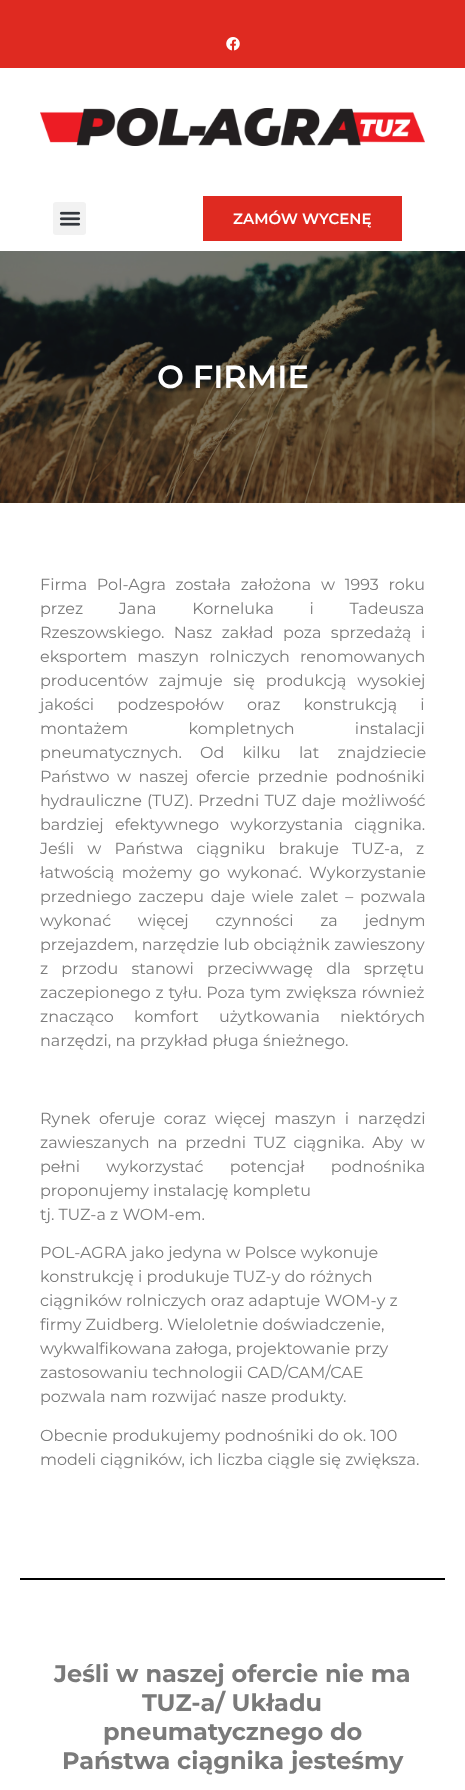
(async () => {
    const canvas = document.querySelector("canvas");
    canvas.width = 465;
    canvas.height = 1790;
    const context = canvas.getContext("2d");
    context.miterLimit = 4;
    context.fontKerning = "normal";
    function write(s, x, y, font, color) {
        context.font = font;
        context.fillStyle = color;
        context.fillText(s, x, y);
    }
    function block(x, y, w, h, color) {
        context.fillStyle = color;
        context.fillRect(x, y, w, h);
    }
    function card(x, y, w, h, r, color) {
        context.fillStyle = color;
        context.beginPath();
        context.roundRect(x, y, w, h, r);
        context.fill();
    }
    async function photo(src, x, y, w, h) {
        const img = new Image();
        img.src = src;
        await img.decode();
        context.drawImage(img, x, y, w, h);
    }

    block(0, 0, 465, 1790, "rgb(255, 255, 255)");
    block(0, 0, 465, 68, "rgb(223, 42, 33)");
    await photo("media/1.png", 226, 37, 14, 14);
    await photo("media/2.png", 40, 108, 385, 38);
    card(53, 202, 33, 33, 3, "rgb(242, 242, 242)");
    await photo("media/3.png", 59, 211, 22, 15);
    block(203, 196, 199, 45, "rgb(223, 42, 33)");
    write("ZAMÓW WYCENĘ", 233, 224, "600 15px Montserrat", "rgb(255, 255, 255)");
    await photo("media/4.png", 0, 251, 465, 252);
    write("O FIRMIE", 157, 388, "600 32px Montserrat", "rgb(255, 255, 255)");
    context.wordSpacing = "5.5px";
    write("Firma Pol-Agra została założona w 1993 roku", 40, 590, "16px Montserrat", "rgb(122, 122, 122)");
    context.wordSpacing = "31.5px";
    write("przez Jana Korneluka i Tadeusza", 40, 614, "16px Montserrat", "rgb(122, 122, 122)");
    context.wordSpacing = "5.25px";
    write("Rzeszowskiego. Nasz zakład poza sprzedażą i", 40, 638, "16px Montserrat", "rgb(122, 122, 122)");
    context.wordSpacing = "6px";
    write("eksportem maszyn rolniczych renomowanych", 40, 662, "16px Montserrat", "rgb(122, 122, 122)");
    context.wordSpacing = "6.5px";
    write("producentów zajmuje się produkcją wysokiej", 40, 686, "16px Montserrat", "rgb(122, 122, 122)");
    context.wordSpacing = "19px";
    write("jakości podzespołów oraz konstrukcją i", 40, 710, "16px Montserrat", "rgb(122, 122, 122)");
    context.wordSpacing = "56px";
    write("montażem kompletnych instalacji", 40, 734, "16px Montserrat", "rgb(122, 122, 122)");
    context.wordSpacing = "0px";
    write("pneumatycznych.", 40, 758, "16px Montserrat", "rgb(122, 122, 122)");
    context.wordSpacing = "14px";
    write("Od kilku lat znajdziecie", 200, 758, "16px Montserrat", "rgb(122, 122, 122)");
    context.wordSpacing = "3.25px";
    write("Państwo w naszej ofercie przednie podnośniki", 40, 782, "16px Montserrat", "rgb(122, 122, 122)");
    context.wordSpacing = "1px";
    write("hydrauliczne (TUZ). Przedni TUZ daje możliwość", 40, 806, "16px Montserrat", "rgb(122, 122, 122)");
    context.wordSpacing = "7px";
    write("bardziej efektywnego wykorzystania ciągnika.", 40, 830, "16px Montserrat", "rgb(122, 122, 122)");
    context.wordSpacing = "9px";
    write("Jeśli w Państwa ciągniku brakuje TUZ-a, z", 40, 854, "16px Montserrat", "rgb(122, 122, 122)");
    context.wordSpacing = "3px";
    write("łatwością możemy go wykonać. Wykorzystanie", 40, 878, "16px Montserrat", "rgb(122, 122, 122)");
    context.wordSpacing = "2.5px";
    write("przedniego zaczepu daje wiele zalet – pozwala", 40, 902, "16px Montserrat", "rgb(122, 122, 122)");
    context.wordSpacing = "22.5px";
    write("wykonać więcej czynności za jednym", 40, 926, "16px Montserrat", "rgb(122, 122, 122)");
    context.wordSpacing = "0px";
    write("przejazdem, narzędzie lub obciążnik zawieszony", 40, 950, "16px Montserrat", "rgb(122, 122, 122)");
    context.wordSpacing = "9px";
    write("z przodu stanowi przeciwwagę dla sprzętu", 40, 974, "16px Montserrat", "rgb(122, 122, 122)");
    context.wordSpacing = "0.5px";
    write("zaczepionego z tyłu. Poza tym zwiększa również", 40, 998, "16px Montserrat", "rgb(122, 122, 122)");
    context.wordSpacing = "16px";
    write("znacząco komfort użytkowania niektórych", 40, 1022, "16px Montserrat", "rgb(122, 122, 122)");
    context.wordSpacing = "0px";
    write("narzędzi, na przykład pługa śnieżnego.", 40, 1046, "16px Montserrat", "rgb(122, 122, 122)");
    context.wordSpacing = "4.5px";
    write("Rynek oferuje coraz więcej maszyn i narzędzi", 40, 1124, "16px Montserrat", "rgb(122, 122, 122)");
    context.wordSpacing = "3.5px";
    write("zawieszanych na przedni TUZ ciągnika. Aby w", 40, 1148, "16px Montserrat", "rgb(122, 122, 122)");
    context.wordSpacing = "22px";
    write("pełni wykorzystać potencjał podnośnika", 40, 1172, "16px Montserrat", "rgb(122, 122, 122)");
    context.wordSpacing = "0px";
    write("proponujemy instalację kompletu", 40, 1196, "16px Montserrat", "rgb(122, 122, 122)");
    write("tj. TUZ-a z WOM-em.", 40, 1220, "16px Montserrat", "rgb(122, 122, 122)");
    write("POL-AGRA jako jedyna w Polsce wykonuje", 40, 1258, "16px Montserrat", "rgb(122, 122, 122)");
    write("konstrukcję i produkuje TUZ-y do różnych", 40, 1282, "16px Montserrat", "rgb(122, 122, 122)");
    write("ciągników rolniczych oraz adaptuje WOM-y z", 40, 1306, "16px Montserrat", "rgb(122, 122, 122)");
    write("firmy Zuidberg. Wieloletnie doświadczenie,", 40, 1330, "16px Montserrat", "rgb(122, 122, 122)");
    write("wykwalfikowana załoga, projektowanie przy", 40, 1354, "16px Montserrat", "rgb(122, 122, 122)");
    write("zastosowaniu technologii CAD/CAM/CAE", 40, 1378, "16px Montserrat", "rgb(122, 122, 122)");
    write("pozwala nam rozwijać nasze produkty.", 40, 1402, "16px Montserrat", "rgb(122, 122, 122)");
    write("Obecnie produkujemy podnośniki do ok. 100", 40, 1441, "16px Montserrat", "rgb(122, 122, 122)");
    write("modeli ciągników, ich liczba ciągle się zwiększa.", 40, 1465, "16px Montserrat", "rgb(122, 122, 122)");
    block(20, 1578, 425, 2, "rgb(0, 0, 0)");
    write("Jeśli w naszej ofercie nie ma", 54, 1682, "bold 24px Montserrat", "rgb(122, 122, 122)");
    write("TUZ-a/ Układu", 142, 1711, "bold 24px Montserrat", "rgb(122, 122, 122)");
    write("pneumatycznego do", 103, 1740, "bold 24px Montserrat", "rgb(122, 122, 122)");
    write("Państwa ciągnika jesteśmy", 62, 1769, "bold 24px Montserrat", "rgb(122, 122, 122)");
})();
